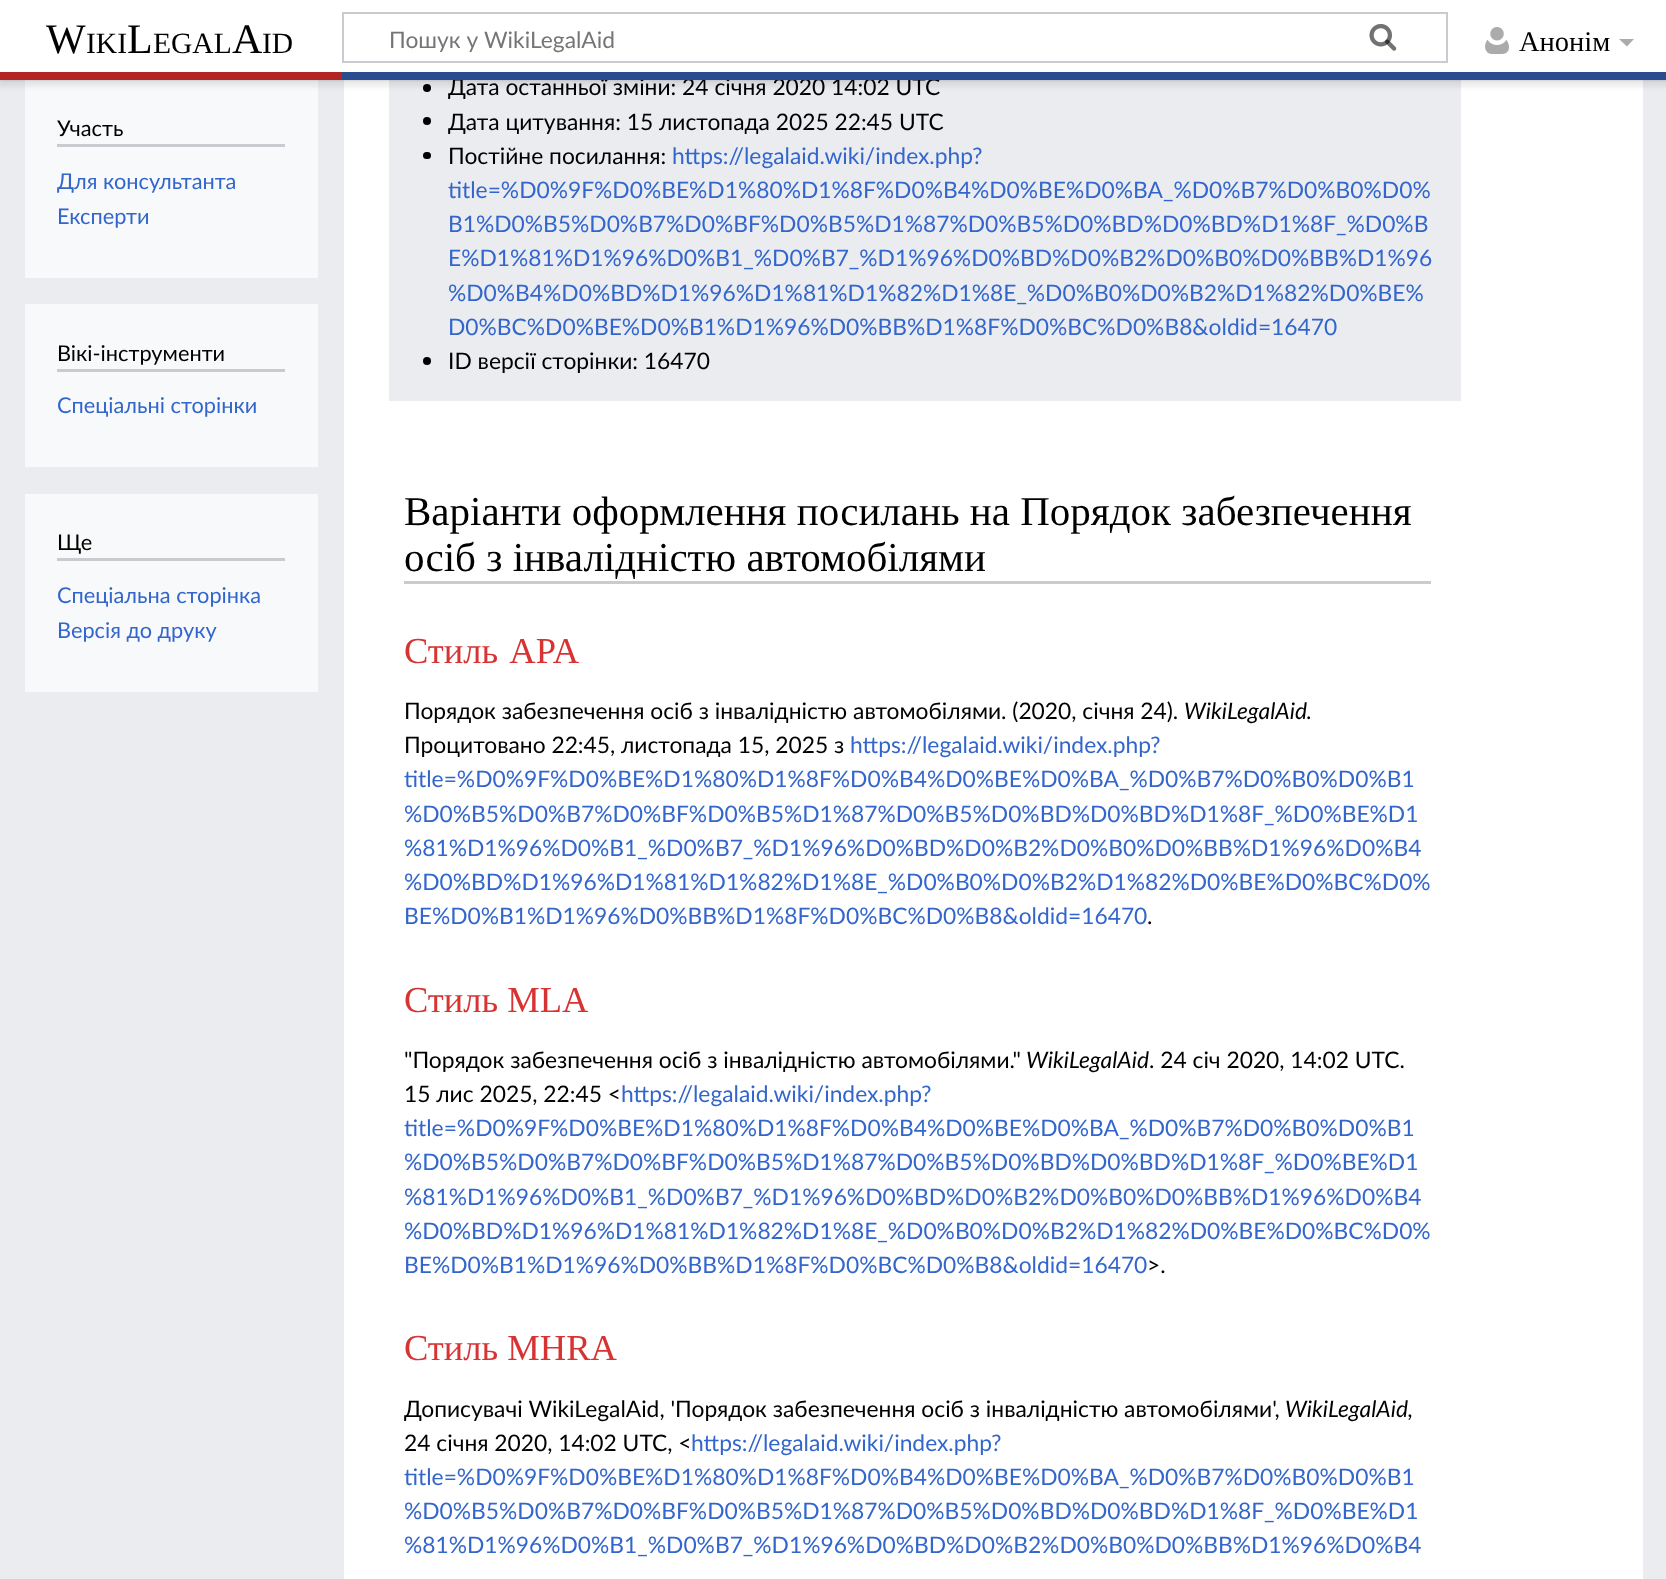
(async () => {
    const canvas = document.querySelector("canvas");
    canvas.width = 1666;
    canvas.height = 1579;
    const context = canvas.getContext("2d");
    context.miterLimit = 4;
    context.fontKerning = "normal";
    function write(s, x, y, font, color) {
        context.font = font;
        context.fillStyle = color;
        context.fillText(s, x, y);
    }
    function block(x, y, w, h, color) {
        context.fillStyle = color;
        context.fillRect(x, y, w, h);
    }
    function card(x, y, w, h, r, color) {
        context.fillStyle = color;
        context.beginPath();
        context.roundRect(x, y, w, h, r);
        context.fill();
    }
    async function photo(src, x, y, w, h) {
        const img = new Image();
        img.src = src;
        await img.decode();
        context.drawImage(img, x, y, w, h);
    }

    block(0, 0, 1666, 1579, "rgb(234, 236, 240)");
    block(25, 80, 293, 198, "rgb(248, 249, 250)");
    block(344, 80, 1299, 1499, "rgb(255, 255, 255)");
    block(389, 80, 1072, 321, "rgb(234, 236, 240)");
    context.fillStyle = "rgb(0, 0, 0)";
    context.beginPath();
    context.arc(427, 88, 4, 0, Math.PI * 2);
    context.fill();
    context.fillStyle = "rgba(0, 0, 0, 0.2)";
    context.filter = "blur(1.5px)";
    context.beginPath();
    context.rect(0, 72, 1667, 8);
    context.fill();
    context.filter = "none";
    context.fillStyle = "rgba(0, 0, 0, 0.07)";
    context.filter = "blur(2px)";
    context.beginPath();
    context.rect(-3, 74, 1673, 13);
    context.fill();
    context.filter = "none";
    block(0, 0, 1666, 72, "rgb(255, 255, 255)");
    write("W", 46, 53, "42px Liberation Serif", "rgb(0, 0, 0)");
    write("IKI", 86, 53, "29.5px Liberation Serif", "rgb(0, 0, 0)");
    write("L", 127, 53, "42px Liberation Serif", "rgb(0, 0, 0)");
    write("EGAL", 153, 53, "29.5px Liberation Serif", "rgb(0, 0, 0)");
    write("A", 232, 53, "42px Liberation Serif", "rgb(0, 0, 0)");
    write("ID", 262, 53, "29.5px Liberation Serif", "rgb(0, 0, 0)");
    context.strokeStyle = "rgb(200, 204, 209)";
    context.lineWidth = 2;
    context.strokeRect(343, 13, 1104, 49);
    await photo("media/1.png", 1369, 24, 28, 27);
    write("Пошук у WikiLegalAid", 389, 48, "22.8px Lato", "rgb(117, 117, 117)");
    await photo("media/2.png", 1369, 24, 28, 27);
    await photo("media/3.png", 1485, 27, 24, 27);
    write("Анонім", 1519, 51, "28.5px Liberation Serif", "rgb(0, 0, 0)");
    context.fillStyle = "rgb(171, 171, 171)";
    context.beginPath();
    context.moveTo(1634, 39);
    context.lineTo(1627, 46.5);
    context.lineTo(1619, 39);
    context.closePath();
    context.fill();
    block(0, 72, 342, 8, "rgb(179, 36, 36)");
    write("Дата останньої зміни: 24 січня 2020 14:02 UTC", 448, 95, "22.8px Lato", "rgb(0, 0, 0)");
    block(342, 72, 1324, 8, "rgb(42, 75, 141)");
    block(57, 144, 228, 3, "rgb(200, 204, 209)");
    write("Участь", 57, 136, "21.75px Lato", "rgb(0, 0, 0)");
    write("Для консультанта", 57, 189, "21.75px Lato", "rgb(51, 102, 204)");
    write("Експерти", 57, 224, "21.75px Lato", "rgb(51, 102, 204)");
    block(25, 304, 293, 163, "rgb(248, 249, 250)");
    block(57, 369, 228, 3, "rgb(200, 204, 209)");
    write("Вікі-інструменти", 57, 361, "21.75px Lato", "rgb(0, 0, 0)");
    write("Спеціальні сторінки", 57, 413, "21.75px Lato", "rgb(51, 102, 204)");
    context.fillStyle = "rgb(0, 0, 0)";
    context.beginPath();
    context.arc(427, 121, 4, 0, Math.PI * 2);
    context.fill();
    write("Дата цитування: 15 листопада 2025 22:45 UTC", 448, 130, "22.8px Lato", "rgb(0, 0, 0)");
    card(423, 152, 8, 7, 3.5, "rgb(0, 0, 0)");
    write("Постійне посилання:", 448, 164, "22.8px Lato", "rgb(0, 0, 0)");
    write("https://legalaid.wiki/index.php?", 672, 164, "22.8px Lato", "rgb(51, 102, 204)");
    write("title=%D0%9F%D0%BE%D1%80%D1%8F%D0%B4%D0%BE%D0%BA_%D0%B7%D0%B0%D0%", 448, 198, "22.8px Lato", "rgb(51, 102, 204)");
    write("B1%D0%B5%D0%B7%D0%BF%D0%B5%D1%87%D0%B5%D0%BD%D0%BD%D1%8F_%D0%B", 448, 232, "22.8px Lato", "rgb(51, 102, 204)");
    write("E%D1%81%D1%96%D0%B1_%D0%B7_%D1%96%D0%BD%D0%B2%D0%B0%D0%BB%D1%96", 448, 266, "22.8px Lato", "rgb(51, 102, 204)");
    write("%D0%B4%D0%BD%D1%96%D1%81%D1%82%D1%8E_%D0%B0%D0%B2%D1%82%D0%BE%", 448, 301, "22.8px Lato", "rgb(51, 102, 204)");
    write("D0%BC%D0%BE%D0%B1%D1%96%D0%BB%D1%8F%D0%BC%D0%B8&oldid=16470", 448, 335, "22.8px Lato", "rgb(51, 102, 204)");
    context.fillStyle = "rgb(0, 0, 0)";
    context.beginPath();
    context.arc(427, 361, 4, 0, Math.PI * 2);
    context.fill();
    write("ID версії сторінки: 16470", 448, 369, "22.8px Lato", "rgb(0, 0, 0)");
    block(404, 581, 1027, 3, "rgb(200, 204, 209)");
    write("Варіанти оформлення посилань на Порядок забезпечення", 404, 525, "41px Liberation Serif", "rgb(0, 0, 0)");
    write("осіб з інвалідністю автомобілями", 404, 571, "41px Liberation Serif", "rgb(0, 0, 0)");
    context.wordSpacing = "2px";
    write("Стиль APA", 404, 663, "36.5px Liberation Serif", "rgb(215, 51, 51)");
    context.wordSpacing = "0px";
    write("Порядок забезпечення осіб з інвалідністю автомобілями. (2020, січня 24).", 404, 719, "22.8px Lato", "rgb(0, 0, 0)");
    write("WikiLegalAid", 1184, 719, "italic 22.8px Lato", "rgb(0, 0, 0)");
    write(".", 1306, 719, "22.8px Lato", "rgb(0, 0, 0)");
    write("Процитовано 22:45, листопада 15, 2025 з", 404, 753, "22.8px Lato", "rgb(0, 0, 0)");
    write("https://legalaid.wiki/index.php?", 850, 753, "22.8px Lato", "rgb(51, 102, 204)");
    write("title=%D0%9F%D0%BE%D1%80%D1%8F%D0%B4%D0%BE%D0%BA_%D0%B7%D0%B0%D0%B1", 404, 787, "22.8px Lato", "rgb(51, 102, 204)");
    write("%D0%B5%D0%B7%D0%BF%D0%B5%D1%87%D0%B5%D0%BD%D0%BD%D1%8F_%D0%BE%D1", 404, 822, "22.8px Lato", "rgb(51, 102, 204)");
    write("%81%D1%96%D0%B1_%D0%B7_%D1%96%D0%BD%D0%B2%D0%B0%D0%BB%D1%96%D0%B4", 404, 856, "22.8px Lato", "rgb(51, 102, 204)");
    write("%D0%BD%D1%96%D1%81%D1%82%D1%8E_%D0%B0%D0%B2%D1%82%D0%BE%D0%BC%D0%", 404, 890, "22.8px Lato", "rgb(51, 102, 204)");
    write("BE%D0%B1%D1%96%D0%BB%D1%8F%D0%BC%D0%B8&oldid=16470", 404, 924, "22.8px Lato", "rgb(51, 102, 204)");
    write(".", 1147, 924, "22.8px Lato", "rgb(0, 0, 0)");
    write("Стиль MLA", 404, 1012, "36.5px Liberation Serif", "rgb(215, 51, 51)");
    write("\"Порядок забезпечення осіб з інвалідністю автомобілями.\"", 404, 1068, "22.8px Lato", "rgb(0, 0, 0)");
    write("WikiLegalAid", 1026, 1068, "italic 22.8px Lato", "rgb(0, 0, 0)");
    write(". 24 січ 2020, 14:02 UTC.", 1149, 1068, "22.8px Lato", "rgb(0, 0, 0)");
    write("15 лис 2025, 22:45 <", 404, 1102, "22.8px Lato", "rgb(0, 0, 0)");
    write("https://legalaid.wiki/index.php?", 621, 1102, "22.8px Lato", "rgb(51, 102, 204)");
    write("title=%D0%9F%D0%BE%D1%80%D1%8F%D0%B4%D0%BE%D0%BA_%D0%B7%D0%B0%D0%B1", 404, 1136, "22.8px Lato", "rgb(51, 102, 204)");
    write("%D0%B5%D0%B7%D0%BF%D0%B5%D1%87%D0%B5%D0%BD%D0%BD%D1%8F_%D0%BE%D1", 404, 1170, "22.8px Lato", "rgb(51, 102, 204)");
    write("%81%D1%96%D0%B1_%D0%B7_%D1%96%D0%BD%D0%B2%D0%B0%D0%BB%D1%96%D0%B4", 404, 1205, "22.8px Lato", "rgb(51, 102, 204)");
    write("%D0%BD%D1%96%D1%81%D1%82%D1%8E_%D0%B0%D0%B2%D1%82%D0%BE%D0%BC%D0%", 404, 1239, "22.8px Lato", "rgb(51, 102, 204)");
    write("BE%D0%B1%D1%96%D0%BB%D1%8F%D0%BC%D0%B8&oldid=16470", 404, 1273, "22.8px Lato", "rgb(51, 102, 204)");
    write(">.", 1147, 1273, "22.8px Lato", "rgb(0, 0, 0)");
    write("Стиль MHRA", 404, 1360, "36.5px Liberation Serif", "rgb(215, 51, 51)");
    write("Дописувачі WikiLegalAid, 'Порядок забезпечення осіб з інвалідністю автомобілями',", 404, 1417, "22.8px Lato", "rgb(0, 0, 0)");
    write("WikiLegalAid,", 1285, 1417, "italic 22.8px Lato", "rgb(0, 0, 0)");
    write("24 січня 2020, 14:02 UTC, <", 404, 1451, "22.8px Lato", "rgb(0, 0, 0)");
    write("https://legalaid.wiki/index.php?", 691, 1451, "22.8px Lato", "rgb(51, 102, 204)");
    write("title=%D0%9F%D0%BE%D1%80%D1%8F%D0%B4%D0%BE%D0%BA_%D0%B7%D0%B0%D0%B1", 404, 1485, "22.8px Lato", "rgb(51, 102, 204)");
    write("%D0%B5%D0%B7%D0%BF%D0%B5%D1%87%D0%B5%D0%BD%D0%BD%D1%8F_%D0%BE%D1", 404, 1519, "22.8px Lato", "rgb(51, 102, 204)");
    write("%81%D1%96%D0%B1_%D0%B7_%D1%96%D0%BD%D0%B2%D0%B0%D0%BB%D1%96%D0%B4", 404, 1553, "22.8px Lato", "rgb(51, 102, 204)");
    block(25, 494, 293, 198, "rgb(248, 249, 250)");
    block(57, 558, 228, 3, "rgb(200, 204, 209)");
    write("Ще", 57, 550, "21.75px Lato", "rgb(0, 0, 0)");
    write("Спеціальна сторінка", 57, 603, "21.75px Lato", "rgb(51, 102, 204)");
    write("Версія до друку", 57, 638, "21.75px Lato", "rgb(51, 102, 204)");
})();
